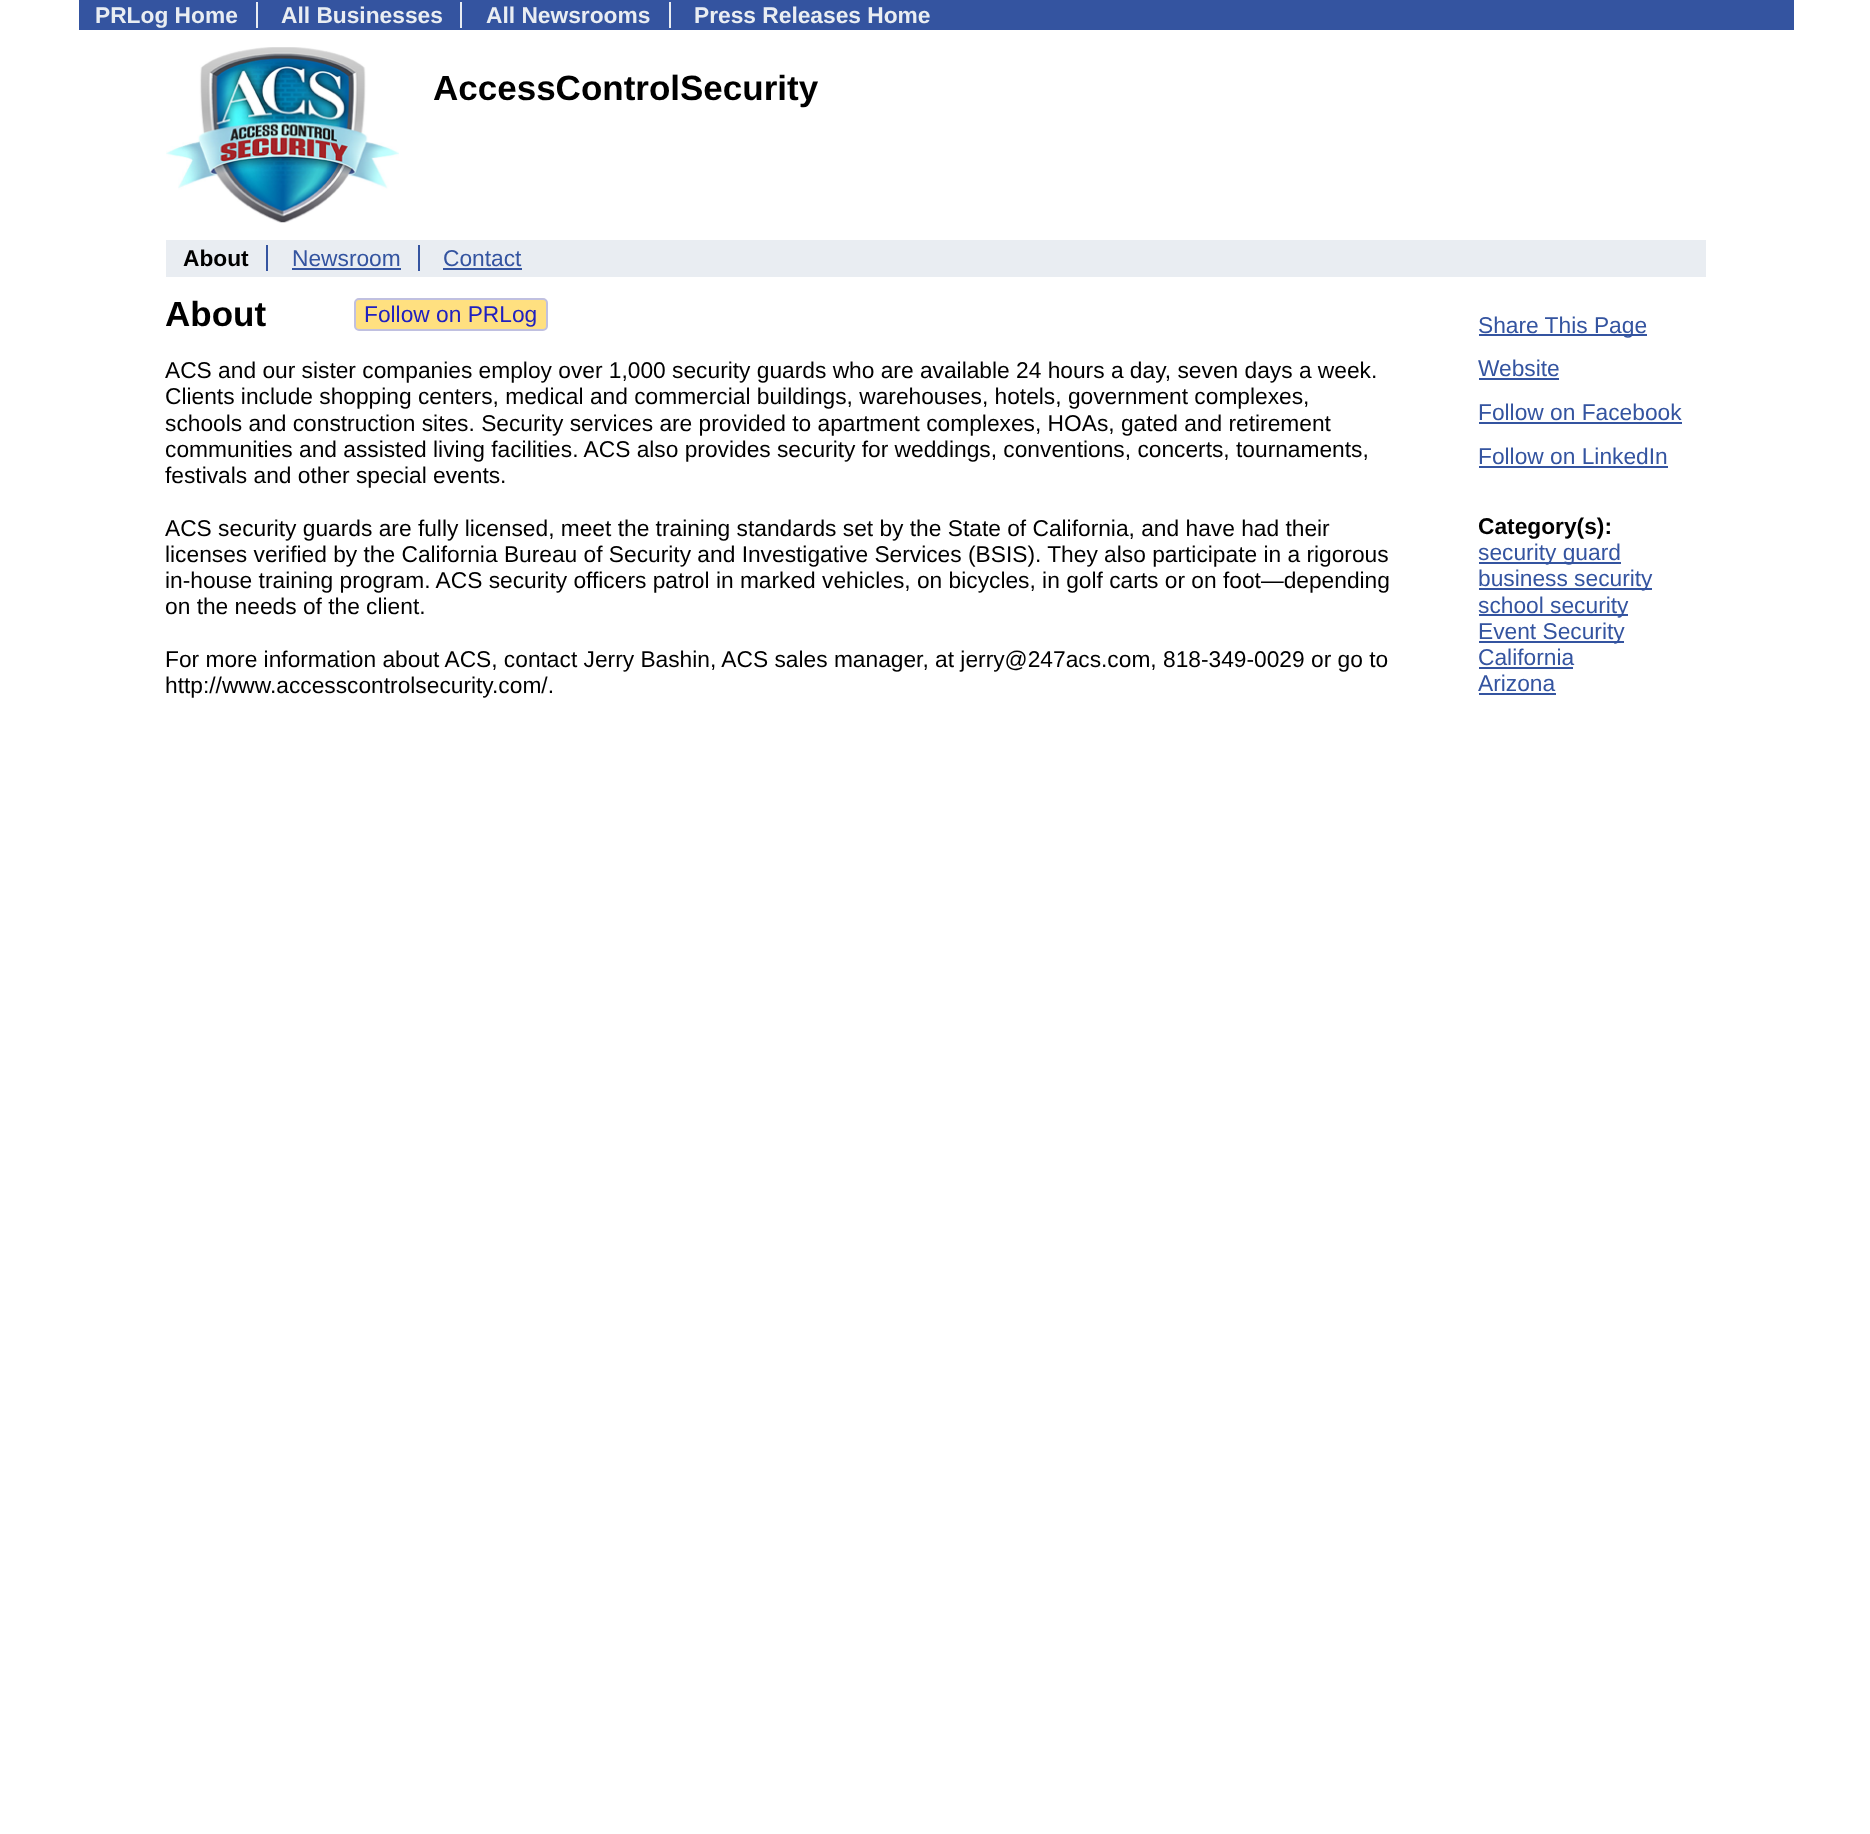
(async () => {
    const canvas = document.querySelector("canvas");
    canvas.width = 1870;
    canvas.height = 1834;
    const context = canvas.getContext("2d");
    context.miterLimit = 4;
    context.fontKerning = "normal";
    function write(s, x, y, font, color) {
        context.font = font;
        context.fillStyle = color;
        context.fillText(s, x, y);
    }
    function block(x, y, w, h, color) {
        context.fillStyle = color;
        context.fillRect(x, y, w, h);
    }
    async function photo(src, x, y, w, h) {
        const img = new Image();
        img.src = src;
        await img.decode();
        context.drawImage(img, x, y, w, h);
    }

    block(0, 0, 1870, 1834, "rgb(255, 255, 255)");
    block(79, 0, 1715, 30, "rgb(52, 84, 160)");
    block(256, 2, 2, 26, "rgb(233, 237, 242)");
    write("PRLog Home", 95, 23, "bold 22.75px Liberation Sans", "rgb(233, 237, 242)");
    block(460, 2, 2, 26, "rgb(233, 237, 242)");
    write("All Businesses", 281, 23, "bold 22.75px Liberation Sans", "rgb(233, 237, 242)");
    block(669, 2, 2, 26, "rgb(233, 237, 242)");
    write("All Newsrooms", 486, 23, "bold 22.75px Liberation Sans", "rgb(233, 237, 242)");
    write("Press Releases Home", 694, 23, "bold 22.75px Liberation Sans", "rgb(233, 237, 242)");
    await photo("media/1.png", 166, 47, 233, 176);
    write("AccessControlSecurity", 433, 100, "bold 35px Liberation Sans", "rgb(0, 0, 0)");
    block(166, 240, 1540, 37, "rgb(233, 237, 242)");
    block(266, 245, 2, 26, "rgb(52, 84, 160)");
    write("About", 183, 266, "bold 22.75px Liberation Sans", "rgb(0, 0, 0)");
    block(418, 245, 2, 26, "rgb(52, 84, 160)");
    write("Newsroom", 292, 266, "22.75px Liberation Sans", "rgb(52, 84, 160)");
    block(292, 268, 109, 2, "rgb(52, 84, 160)");
    write("Contact", 443, 266, "22.75px Liberation Sans", "rgb(52, 84, 160)");
    block(443, 268, 79, 2, "rgb(52, 84, 160)");
    write("About", 165, 326, "bold 35px Liberation Sans", "rgb(0, 0, 0)");
    context.fillStyle = "rgb(255, 224, 128)";
    context.beginPath();
    context.roundRect(355, 299, 192, 31, 4);
    context.fill();
    context.strokeStyle = "rgb(192, 192, 224)";
    context.lineWidth = 2;
    context.stroke();
    write("Follow on PRLog", 364, 322, "22.75px Liberation Sans", "rgb(32, 32, 192)");
    write("ACS and our sister companies employ over 1,000 security guards who are available 24 hours a day, seven days a week.", 165, 378, "22.75px Liberation Sans", "rgb(0, 0, 0)");
    write("Clients include shopping centers, medical and commercial buildings, warehouses, hotels, government complexes,", 165, 404, "22.75px Liberation Sans", "rgb(0, 0, 0)");
    write("schools and construction sites. Security services are provided to apartment complexes, HOAs, gated and retirement", 165, 431, "22.75px Liberation Sans", "rgb(0, 0, 0)");
    write("communities and assisted living facilities. ACS also provides security for weddings, conventions, concerts, tournaments,", 165, 457, "22.75px Liberation Sans", "rgb(0, 0, 0)");
    write("festivals and other special events.", 165, 483, "22.75px Liberation Sans", "rgb(0, 0, 0)");
    write("ACS security guards are fully licensed, meet the training standards set by the State of California, and have had their", 165, 536, "22.75px Liberation Sans", "rgb(0, 0, 0)");
    write("licenses verified by the California Bureau of Security and Investigative Services (BSIS). They also participate in a rigorous", 165, 562, "22.75px Liberation Sans", "rgb(0, 0, 0)");
    write("in-house training program. ACS security officers patrol in marked vehicles, on bicycles, in golf carts or on foot—depending", 165, 588, "22.75px Liberation Sans", "rgb(0, 0, 0)");
    write("on the needs of the client.", 165, 614, "22.75px Liberation Sans", "rgb(0, 0, 0)");
    write("For more information about ACS, contact Jerry Bashin, ACS sales manager, at jerry@247acs.com, 818-349-0029 or go to", 165, 667, "22.75px Liberation Sans", "rgb(0, 0, 0)");
    write("http://www.accesscontrolsecurity.com/.", 165, 693, "22.75px Liberation Sans", "rgb(0, 0, 0)");
    block(1479, 334, 168, 2, "rgb(52, 84, 160)");
    write("Share This Page", 1478, 333, "22.75px Liberation Sans", "rgb(52, 84, 160)");
    write("Website", 1478, 376, "22.75px Liberation Sans", "rgb(52, 84, 160)");
    block(1479, 378, 80, 2, "rgb(52, 84, 160)");
    write("Follow on Facebook", 1478, 420, "22.75px Liberation Sans", "rgb(52, 84, 160)");
    block(1479, 422, 203, 2, "rgb(52, 84, 160)");
    write("Follow on LinkedIn", 1478, 464, "22.75px Liberation Sans", "rgb(52, 84, 160)");
    block(1479, 466, 189, 2, "rgb(52, 84, 160)");
    write("Category(s):", 1478, 534, "bold 22.75px Liberation Sans", "rgb(0, 0, 0)");
    block(1479, 562, 142, 2, "rgb(52, 84, 160)");
    write("security guard", 1478, 560, "22.75px Liberation Sans", "rgb(52, 84, 160)");
    block(1479, 588, 173, 2, "rgb(52, 84, 160)");
    write("business security", 1478, 586, "22.75px Liberation Sans", "rgb(52, 84, 160)");
    block(1479, 614, 149, 2, "rgb(52, 84, 160)");
    write("school security", 1478, 613, "22.75px Liberation Sans", "rgb(52, 84, 160)");
    block(1479, 641, 145, 2, "rgb(52, 84, 160)");
    write("Event Security", 1478, 639, "22.75px Liberation Sans", "rgb(52, 84, 160)");
    write("California", 1478, 665, "22.75px Liberation Sans", "rgb(52, 84, 160)");
    block(1479, 667, 94, 2, "rgb(52, 84, 160)");
    write("Arizona", 1478, 691, "22.75px Liberation Sans", "rgb(52, 84, 160)");
    block(1479, 693, 77, 2, "rgb(52, 84, 160)");
})();
